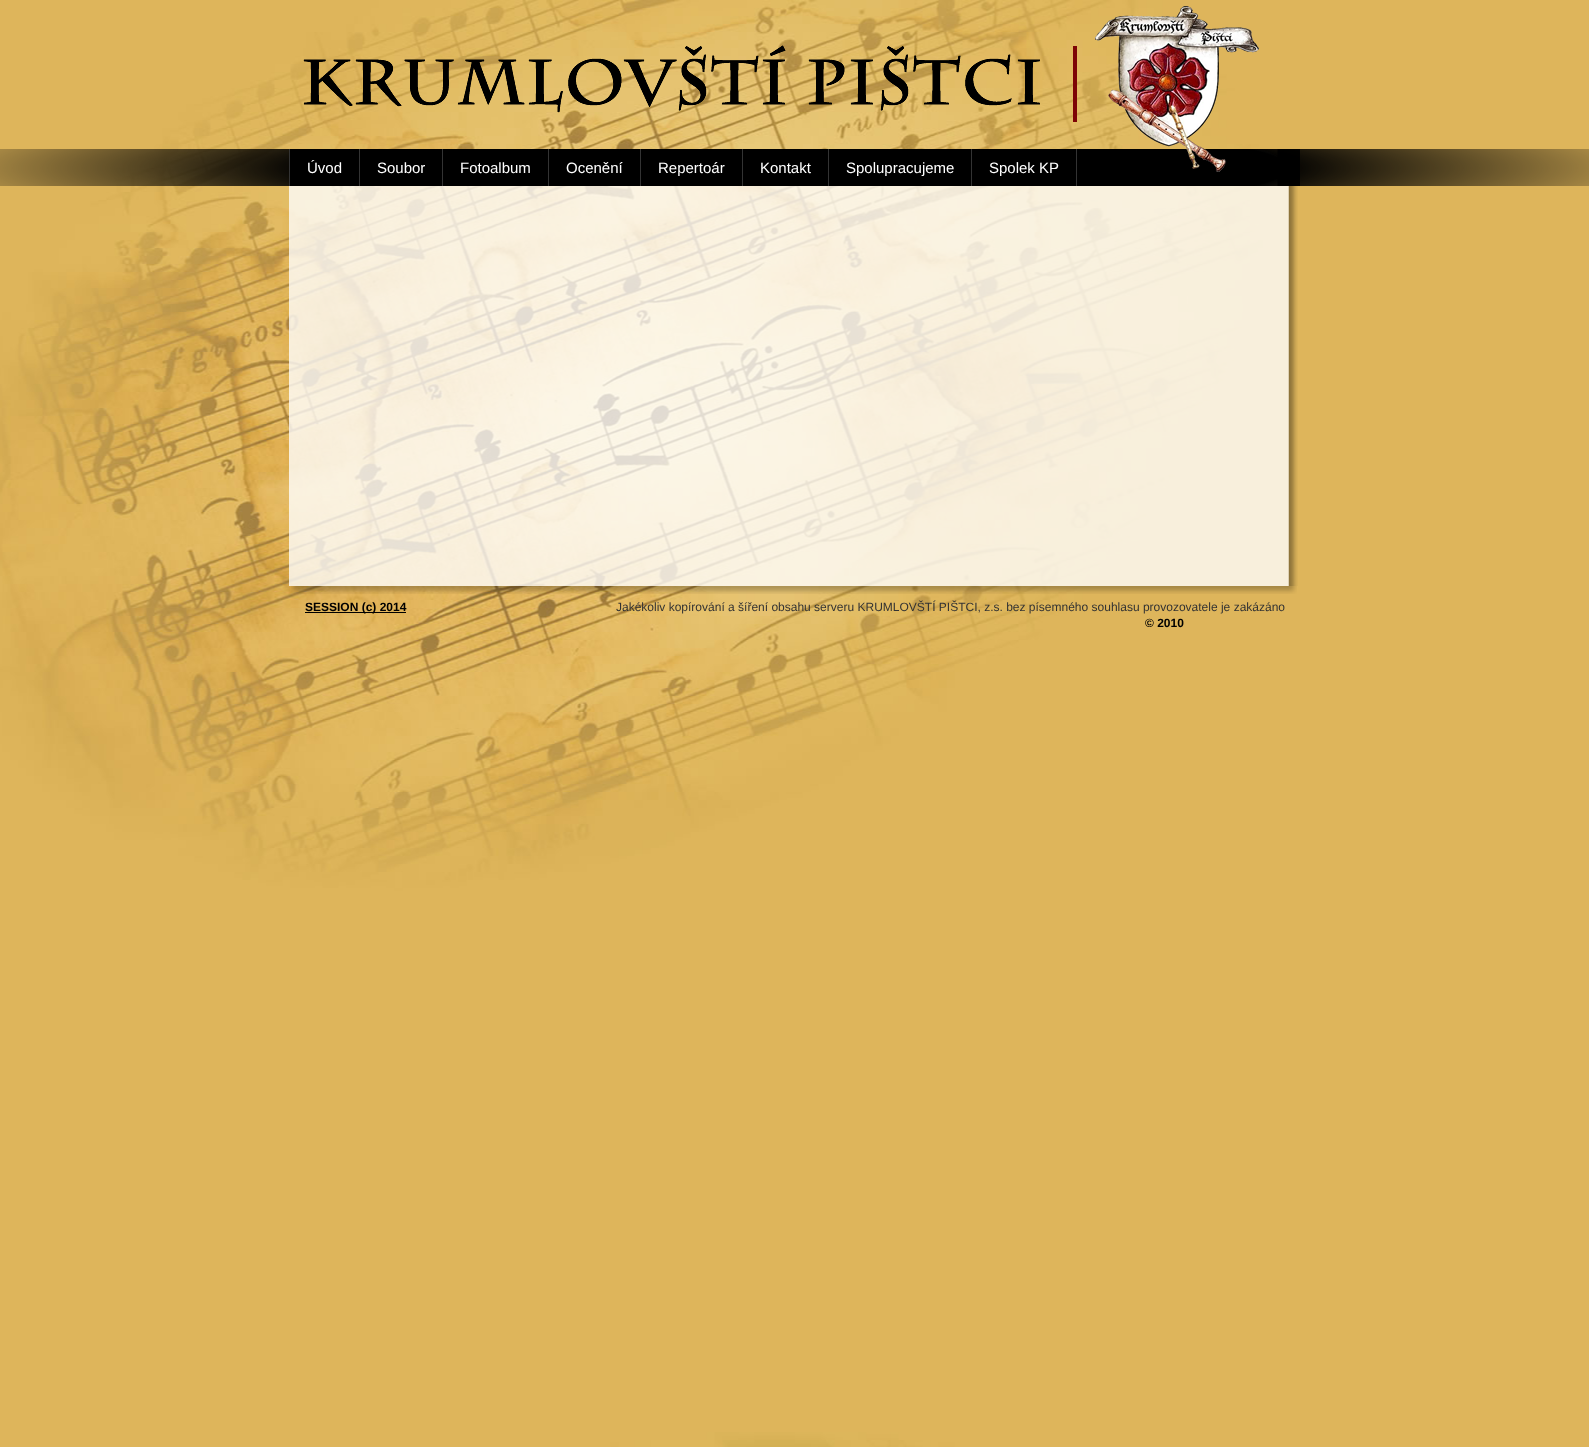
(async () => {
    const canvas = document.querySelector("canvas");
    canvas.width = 1589;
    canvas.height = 1447;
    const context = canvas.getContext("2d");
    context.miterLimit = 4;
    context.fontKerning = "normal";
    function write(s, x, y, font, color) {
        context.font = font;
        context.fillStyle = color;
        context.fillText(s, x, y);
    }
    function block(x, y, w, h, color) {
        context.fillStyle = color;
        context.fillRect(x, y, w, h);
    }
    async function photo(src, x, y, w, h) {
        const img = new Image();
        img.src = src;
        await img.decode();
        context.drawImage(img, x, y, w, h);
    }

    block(0, 0, 1589, 1447, "rgb(255, 255, 255)");
    await photo("media/1.png", 0, 0, 1589, 1447);
    await photo("media/2.png", 290, 6, 1010, 180);
    await photo("media/3.png", 289, 186, 1009, 400);
    await photo("media/4.png", 291, 586, 1006, 8);
    await photo("media/5.png", 0, 149, 1589, 37);
    block(289, 149, 1, 37, "rgb(51, 51, 51)");
    write("Úvod", 307, 173, "15px Liberation Sans", "rgb(255, 255, 255)");
    block(359, 149, 1, 37, "rgb(51, 51, 51)");
    write("Soubor", 377, 173, "15px Liberation Sans", "rgb(255, 255, 255)");
    block(442, 149, 1, 37, "rgb(51, 51, 51)");
    write("Fotoalbum", 460, 173, "15px Liberation Sans", "rgb(255, 255, 255)");
    block(548, 149, 1, 37, "rgb(51, 51, 51)");
    write("Ocenění", 566, 173, "15px Liberation Sans", "rgb(255, 255, 255)");
    block(640, 149, 1, 37, "rgb(51, 51, 51)");
    write("Repertoár", 658, 173, "15px Liberation Sans", "rgb(255, 255, 255)");
    block(742, 149, 1, 37, "rgb(51, 51, 51)");
    write("Kontakt", 760, 173, "15px Liberation Sans", "rgb(255, 255, 255)");
    block(828, 149, 1, 37, "rgb(51, 51, 51)");
    write("Spolupracujeme", 846, 173, "15px Liberation Sans", "rgb(255, 255, 255)");
    block(971, 149, 1, 37, "rgb(51, 51, 51)");
    write("Spolek KP", 989, 173, "15px Liberation Sans", "rgb(255, 255, 255)");
    block(1076, 149, 1, 37, "rgb(51, 51, 51)");
    block(305, 612, 101, 1, "rgb(0, 0, 0)");
    write("SESSION (c) 2014", 305, 611, "bold 12px Liberation Sans", "rgb(0, 0, 0)");
    write("Jakékoliv kopírování a šíření obsahu serveru KRUMLOVŠTÍ PIŠTCI, z.s. bez písemného souhlasu provozovatele je zakázáno", 616, 611, "12px Liberation Sans", "rgb(51, 51, 51)");
    write("© 2010", 1145, 627, "bold 12px Liberation Sans", "rgb(0, 0, 0)");
})();
